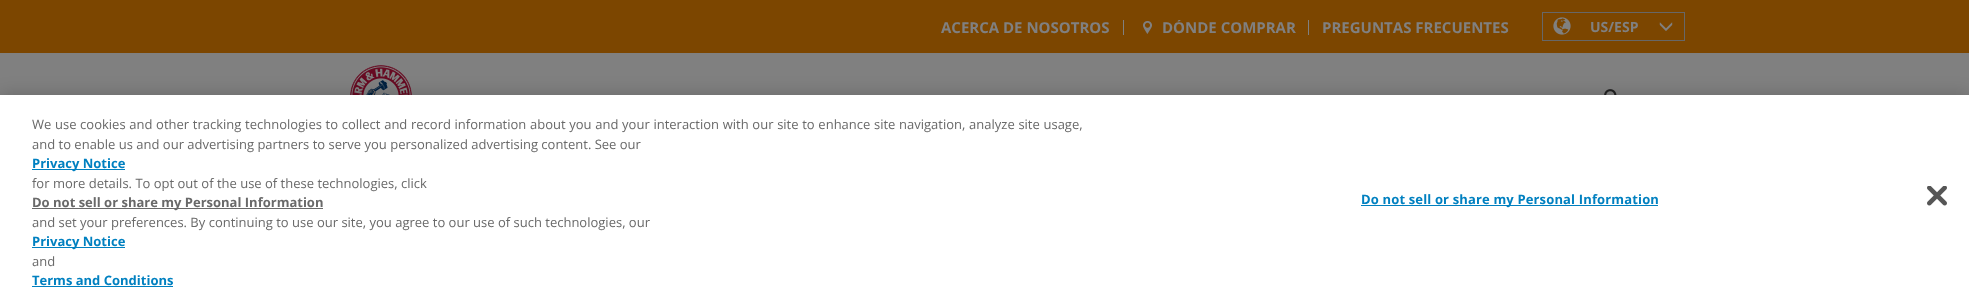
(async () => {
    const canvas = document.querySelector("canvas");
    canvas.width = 1969;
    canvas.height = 301;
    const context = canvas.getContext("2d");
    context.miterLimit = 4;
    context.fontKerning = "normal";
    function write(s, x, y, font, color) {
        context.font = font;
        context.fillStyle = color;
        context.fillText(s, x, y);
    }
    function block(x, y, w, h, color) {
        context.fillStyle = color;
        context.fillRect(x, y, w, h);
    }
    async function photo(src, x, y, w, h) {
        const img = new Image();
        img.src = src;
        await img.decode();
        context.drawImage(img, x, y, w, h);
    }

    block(0, 0, 1969, 301, "rgb(128, 128, 128)");
    block(0, 0, 1969, 53, "rgb(124, 70, 0)");
    block(1123, 20, 1, 15, "rgb(128, 128, 128)");
    write("ACERCA DE NOSOTROS", 941, 33, "bold 15px Open Sans", "rgb(128, 128, 128)");
    block(1308, 20, 1, 15, "rgb(128, 128, 128)");
    await photo("media/1.png", 1143, 21, 9, 13);
    context.save();
    context.beginPath();
    context.rect(1124, 20, 184, 15);
    context.clip();
    write("DÓNDE COMPRAR", 1162, 33, "bold 15px Open Sans", "rgb(128, 128, 128)");
    context.restore();
    write("PREGUNTAS FRECUENTES", 1322, 33, "bold 15px Open Sans", "rgb(128, 128, 128)");
    context.strokeStyle = "rgb(103, 103, 103)";
    context.strokeRect(1542.5, 12.5, 142, 28);
    await photo("media/2.png", 1553, 17, 18, 18);
    write("US/ESP", 1590, 32, "bold 14px Open Sans", "rgb(128, 128, 128)");
    await photo("media/3.png", 1659, 22, 14, 9);
    await photo("media/4.png", 350, 65, 62, 30);
    await photo("media/5.png", 1604, 89, 13, 6);
    context.fillStyle = "rgba(0, 0, 0, 0.2)";
    context.filter = "blur(9px)";
    context.beginPath();
    context.rect(0, 95, 1969, 206);
    context.fill();
    context.filter = "none";
    block(0, 95, 1969, 206, "rgb(255, 255, 255)");
    context.wordSpacing = "0.3px";
    write("We use cookies and other tracking technologies to collect and record information about you and your interaction with our site to enhance site navigation, analyze site usage,", 32, 129, "13px Open Sans", "rgb(105, 105, 105)");
    context.wordSpacing = "0px";
    write("and to enable us and our advertising partners to serve you personalized advertising content. See our", 32, 149, "13px Open Sans", "rgb(105, 105, 105)");
    block(32, 169, 93, 1, "rgb(0, 128, 192)");
    write("Privacy Notice", 32, 168, "bold 13px Open Sans", "rgb(0, 128, 192)");
    write("for more details. To opt out of the use of these technologies, click", 32, 188, "13px Open Sans", "rgb(105, 105, 105)");
    block(32, 208, 291, 1, "rgb(105, 105, 105)");
    write("Do not sell or share my Personal Information", 32, 207, "bold 13px Open Sans", "rgb(105, 105, 105)");
    write("and set your preferences. By continuing to use our site, you agree to our use of such technologies, our", 32, 227, "13px Open Sans", "rgb(105, 105, 105)");
    block(32, 247, 93, 1, "rgb(0, 128, 192)");
    write("Privacy Notice", 32, 246, "bold 13px Open Sans", "rgb(0, 128, 192)");
    write("and", 32, 266, "13px Open Sans", "rgb(105, 105, 105)");
    write("Terms and Conditions", 32, 285, "bold 13px Open Sans", "rgb(0, 128, 192)");
    block(32, 286, 141, 1, "rgb(0, 128, 192)");
    block(1361, 205, 297, 1, "rgb(0, 128, 192)");
    context.letterSpacing = "0.15px";
    write("Do not sell or share my Personal Information", 1361, 204, "bold 13px Open Sans", "rgb(0, 128, 192)");
    await photo("media/6.png", 1927, 186, 20, 20);
})();
